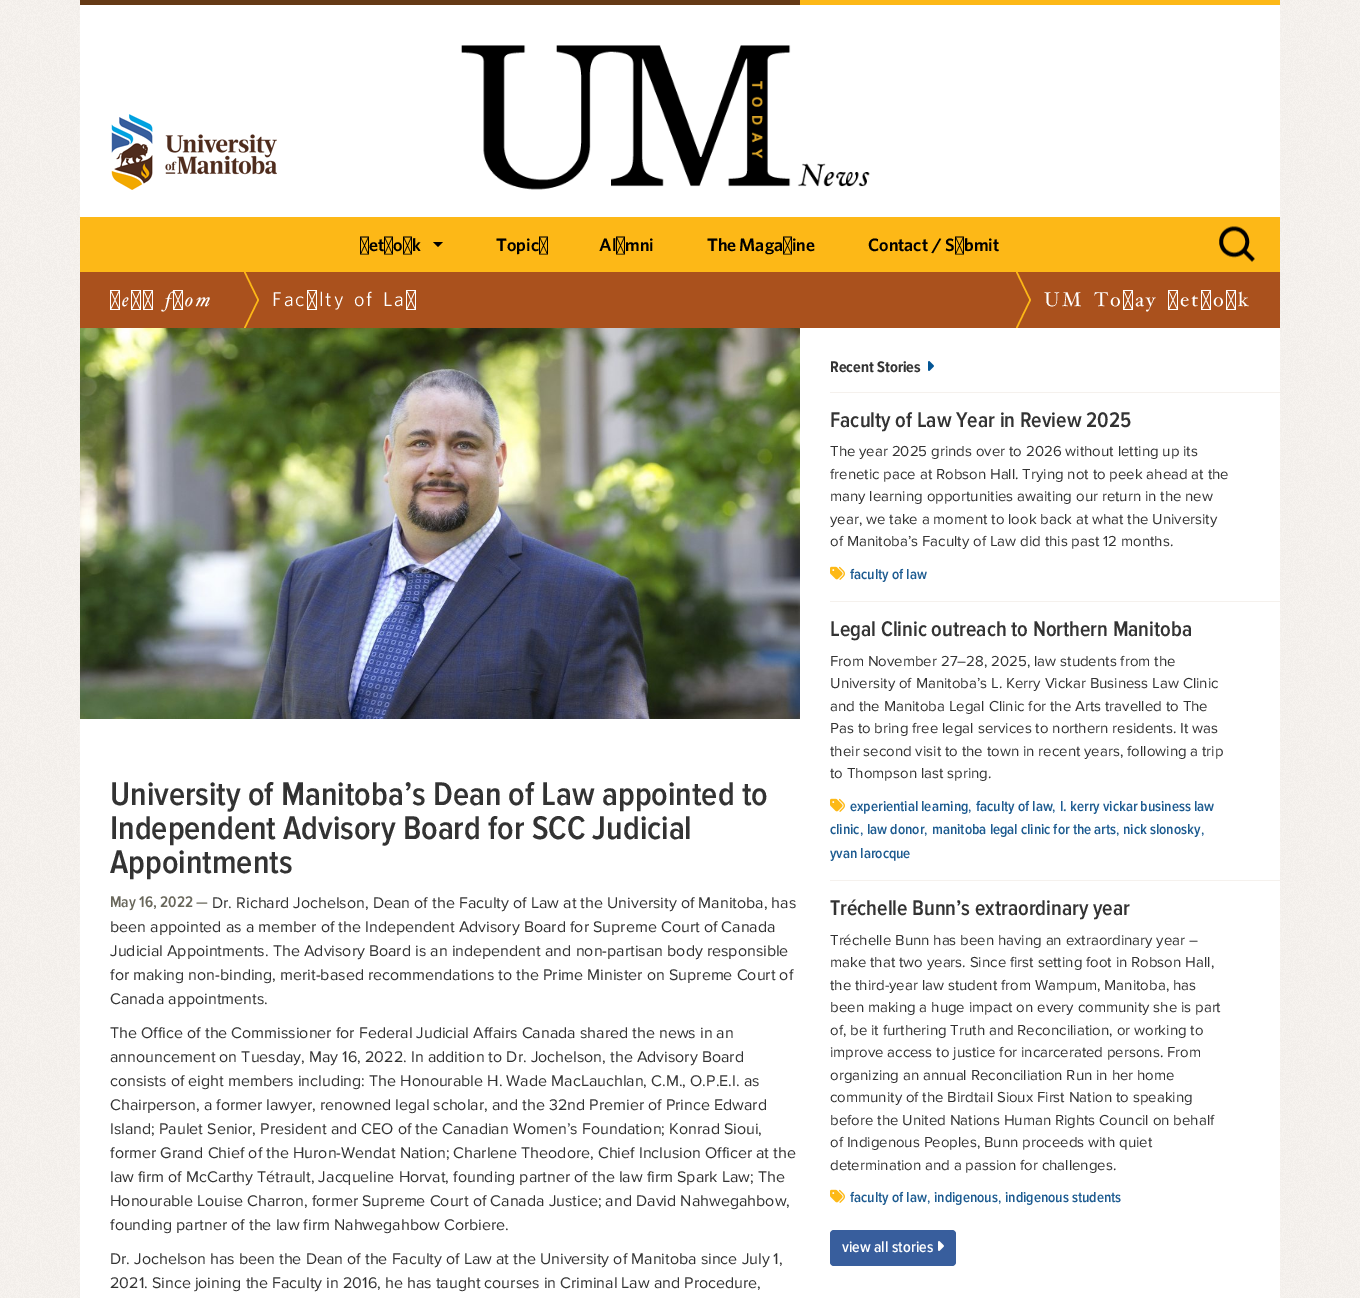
%!PS
<< /PageSize [1360 1298] >> setpagedevice
/rgb { dup -16 bitshift 255 div exch dup -8 bitshift 255 and 255 div exch 255 and 255 div setrgbcolor } def
/font { [ exch dup neg 0 0 3 -1 roll 0 0 ] selectfont } def
/text { moveto show } def
/roundrect { 5 dict begin { /r /h /w /y /x } { exch def } forall
  x r add y moveto x w add y 2 copy h add r arct x w add y h add x 1 index r arct
  x y h add x y r arct x y 2 copy exch w add exch r arct closepath end } def
/picture { 5 dict begin { /h /w /y /x /name } { exch def } forall
  gsave x y translate w h scale
  w h 8 [w 0 0 h 0 0] name (r) file false 3 colorimage grestore end } def
0 1298 translate 1 -1 scale
4 setmiterlimit
/s1 { /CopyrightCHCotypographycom-Regular 18 font 16#000000 rgb } def
/s2 { /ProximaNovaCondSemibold-SemiBold 34 font 16#333333 rgb } def
/s3 { /ProximaNovaCondSemibold-SemiBold 16 font 16#69675B rgb } def
/s4 { /ProximaNova-Regular 16 font 16#333333 rgb } def
/s5 { /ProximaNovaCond-Bold 16 font 16#333333 rgb } def
/s6 { /ProximaNovaCondSemibold-SemiBold 22 font 16#333333 rgb } def
/s7 { /ProximaNova-Regular 15 font 16#333333 rgb } def
/s8 { /ProximaNovaCondSemibold-SemiBold 15 font 16#1E5C91 rgb } def
/s9 { /ProximaNova-Regular 15 font 16#1E5C91 rgb } def
/s10 { /ProximaNovaCondSemibold-SemiBold 16 font 16#FFFFFF rgb } def
16#FFFFFF rgb
0 0 1360 1298 rectfill
(pic1.raw) 0 0 1360 1298 picture
16#653A15 rgb
80 0 720 5 rectfill
16#FDB817 rgb
800 0 480 5 rectfill
16#FFFFFF rgb
80 5 1200 212 rectfill
(pic2.raw) 111 114 166 76 picture
(pic3.raw) 461 45 409 145 picture
16#FDB817 rgb
80 217 1200 55 rectfill
s1
(Network) 360 251 text
433 242 moveto 443 242 lineto 438 247 lineto closepath fill
(Topics) 496 251 text
(Alumni) 599 251 text
707 251 moveto -1 0 32 (The Magazine) widthshow
(Contact / Submit) 868 251 text
(pic4.raw) 1219 226 36 36 picture
16#AA511D rgb
80 272 1200 56 rectfill
/CopyrightCHCotypographycom-LightItalic 20 font
16#FFFFFF rgb
110 306 moveto 4 0 32 2 0 (News from) awidthshow
gsave
242 272 208 56 rectclip
16#FDB817 rgb
244 331 moveto 244 269 lineto 259 300 lineto closepath fill
16#AA511D rgb
242 331 moveto 242 269 lineto 257 300 lineto closepath fill
grestore
/CopyrightCHCotypographycom-Light 20 font
272 306 moveto 2 0 32 2 0 (Faculty of Law) awidthshow
gsave
1014 272 266 56 rectclip
16#FDB817 rgb
1016 331 moveto 1016 269 lineto 1031 300 lineto closepath fill
16#AA511D rgb
1014 331 moveto 1014 269 lineto 1029 300 lineto closepath fill
grestore
/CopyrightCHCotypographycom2-Light 20 font
1044 306 moveto 5 0 32 2 0 (UM Today Network) awidthshow
80 328 1200 970 rectfill
(pic5.raw) 80 328 720 391 picture
s2
(University of Manitoba’s Dean of Law appointed to) 110 805 text
(Independent Advisory Board for SCC Judicial) 110 839 text
(Appointments) 110 873 text
s3
(May 16, 2022 —) 110 907 text
s4
(Dr. Richard Jochelson, Dean of the Faculty of Law at the University of Manitoba, has) 212 908 text
(been appointed as a member of the Independent Advisory Board for Supreme Court of Canada) 110 932 text
(Judicial Appointments. The Advisory Board is an independent and non-partisan body responsible) 110 956 text
(for making non-binding, merit-based recommendations to the Prime Minister on Supreme Court of) 110 980 text
(Canada appointments.) 110 1004 text
(The Office of the Commissioner for Federal Judicial Affairs Canada shared the news in an) 110 1038 text
(announcement on Tuesday, May 16, 2022. In addition to Dr. Jochelson, the Advisory Board) 110 1062 text
(consists of eight members including: The Honourable H. Wade MacLauchlan, C.M., O.P.E.I. as) 110 1086 text
(Chairperson, a former lawyer, renowned legal scholar, and the 32nd Premier of Prince Edward) 110 1110 text
(Island; Paulet Senior, President and CEO of the Canadian Women’s Foundation; Konrad Sioui,) 110 1134 text
(former Grand Chief of the Huron-Wendat Nation; Charlene Theodore, Chief Inclusion Officer at the) 110 1158 text
(law firm of McCarthy Tétrault, Jacqueline Horvat, founding partner of the law firm Spark Law; The) 110 1182 text
(Honourable Louise Charron, former Supreme Court of Canada Justice; and David Nahwegahbow,) 110 1206 text
(founding partner of the law firm Nahwegahbow Corbiere.) 110 1230 text
(Dr. Jochelson has been the Dean of the Faculty of Law at the University of Manitoba since July 1,) 110 1264 text
(2021. Since joining the Faculty in 2016, he has taught courses in Criminal Law and Procedure,) 110 1288 text
s5
(Recent Stories) 830 372 text
(pic6.raw) 928 361 6 10 picture
16#F5F1ED rgb
830 392 450 1 rectfill
s6
(Faculty of Law Year in Review 2025) 830 427 text
s7
(The year 2025 grinds over to 2026 without letting up its) 830 456 text
(frenetic pace at Robson Hall. Trying not to peek ahead at the) 830 479 text
(many learning opportunities awaiting our return in the new) 830 501 text
(year, we take a moment to look back at what the University) 830 524 text
(of Manitoba’s Faculty of Law did this past 12 months.) 830 546 text
(pic7.raw) 830 566 15 14 picture
s8
(faculty of law) 850 579 text
16#F5F1ED rgb
830 601 450 1 rectfill
s6
(Legal Clinic outreach to Northern Manitoba) 830 636 text
s7
(From November 27–28, 2025, law students from the) 830 666 text
(University of Manitoba’s L. Kerry Vickar Business Law Clinic) 830 688 text
(and the Manitoba Legal Clinic for the Arts travelled to The) 830 711 text
(Pas to bring free legal services to northern residents. It was) 830 733 text
(their second visit to the town in recent years, following a trip) 830 756 text
(to Thompson last spring.) 830 778 text
(pic7.raw) 830 798 15 14 picture
s8
(experiential learning) 850 811 text
s9
(,) 968 811 text
s8
(faculty of law) 976 811 text
s9
(,) 1052 811 text
s8
(l. kerry vickar business law) 1060 811 text
(clinic) 830 834 text
s9
(,) 860 834 text
s8
(law donor) 867 834 text
s9
(,) 924 834 text
s8
(manitoba legal clinic for the arts) 932 834 text
s9
(,) 1116 834 text
s8
(nick slonosky) 1123 834 text
s9
(,) 1201 834 text
s8
(yvan larocque) 830 858 text
16#F5F1ED rgb
830 880 450 1 rectfill
s6
(Tréchelle Bunn’s extraordinary year) 830 915 text
s7
(Tréchelle Bunn has been having an extraordinary year –) 830 945 text
(make that two years. Since first setting foot in Robson Hall,) 830 967 text
(the third-year law student from Wampum, Manitoba, has) 830 990 text
(been making a huge impact on every community she is part) 830 1012 text
(of, be it furthering Truth and Reconciliation, or working to) 830 1035 text
(improve access to justice for incarcerated persons. From) 830 1057 text
(organizing an annual Reconciliation Run in her home) 830 1080 text
(community of the Birdtail Sioux First Nation to speaking) 830 1102 text
(before the United Nations Human Rights Council on behalf) 830 1125 text
(of Indigenous Peoples, Bunn proceeds with quiet) 830 1147 text
(determination and a passion for challenges.) 830 1170 text
(pic7.raw) 830 1189 15 14 picture
s8
(faculty of law) 850 1202 text
s9
(,) 927 1202 text
s8
(indigenous) 934 1202 text
s9
(,) 998 1202 text
s8
(indigenous students) 1005 1202 text
16#385E9D rgb
830 1230 126 36 4 roundrect fill
s10
(view all stories) 842 1252 text
(pic8.raw) 938 1241 6 10 picture
showpage
